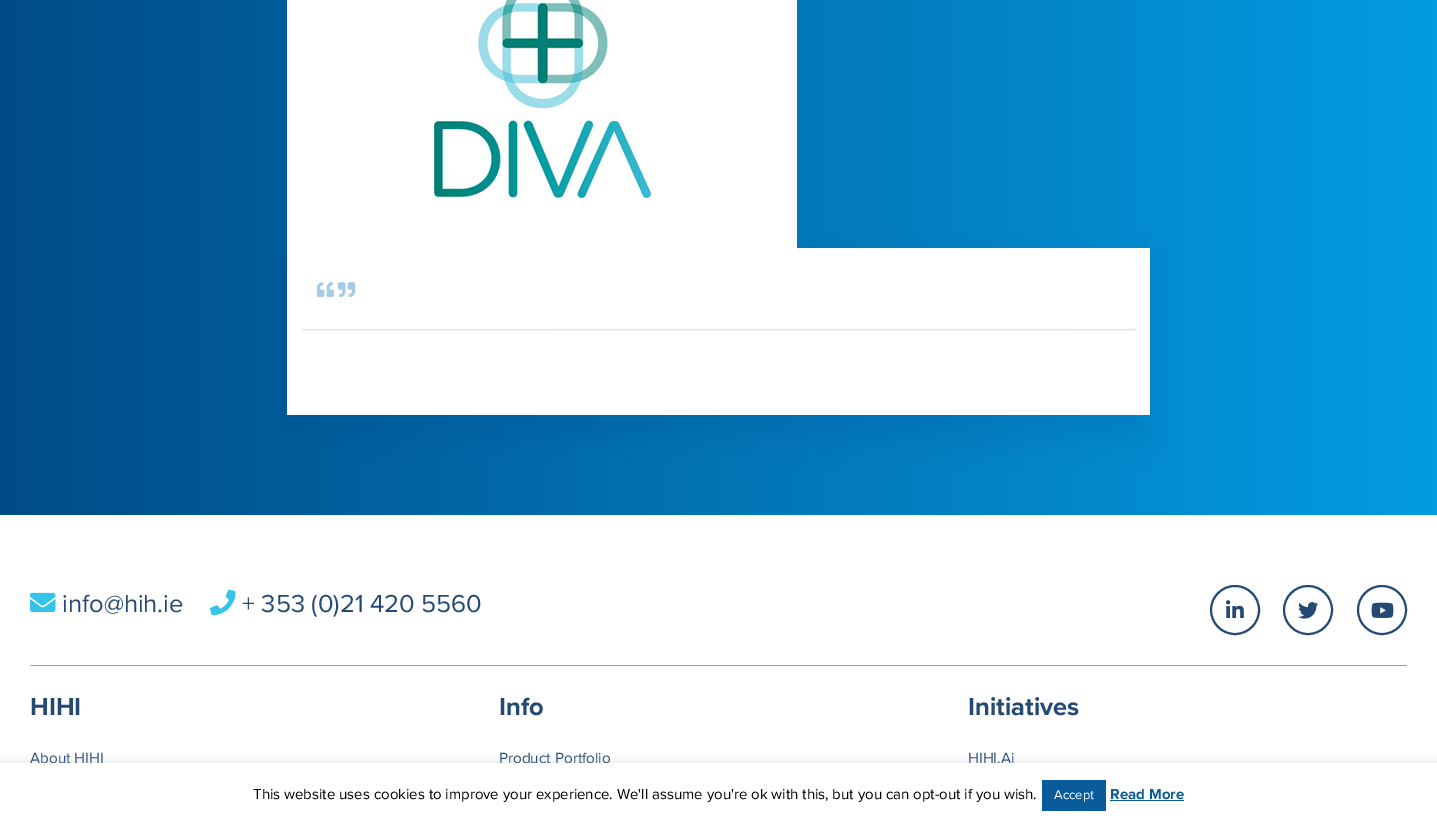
%!PS
<< /PageSize [1437 823] /PageUsesTransparency true >> setpagedevice
/rgb { dup -16 bitshift 255 div exch dup -8 bitshift 255 and 255 div exch 255 and 255 div setrgbcolor } def
/font { [ exch dup neg 0 0 3 -1 roll 0 0 ] selectfont } def
/text { moveto show } def
/alpha { dup .setfillconstantalpha .setstrokeconstantalpha } def
/circle { newpath 0 360 arc closepath } def
/roundrect { 5 dict begin { /r /h /w /y /x } { exch def } forall
  x r add y moveto x w add y 2 copy h add r arct x w add y h add x 1 index r arct
  x y h add x y r arct x y 2 copy exch w add exch r arct closepath end } def
/shadow { 12 dict begin { /a /b /q /h /w /y /x } { exch def } forall gsave /was 0 def
  9 -2 -9 { dup b mul 4 div /e exch def 1 sub .425 mul 2.718 exch exp 1 add a .99 .min exch div /now exch def
    1 1 now sub 1 was sub div sub alpha /was now def
    w h .min e 2 mul add 0 gt { x e sub y e sub w e 2 mul add h e 2 mul add
      q e add b .6 mul add w h .min 2 div e add .min 0 .max roundrect fill } if } for grestore end } def
/picture { 5 dict begin { /h /w /y /x /name } { exch def } forall
  gsave x y translate w h scale
  w h 8 [w 0 0 h 0 0] name (r) file false 3 colorimage grestore end } def
0 .pushpdf14devicefilter
0 823 translate 1 -1 scale
4 setmiterlimit
/s1 { /ProximaNova-Regular 25.5 font 16#244974 rgb } def
/s2 { /ProximaNova-Bold 25.5 font 16#244974 rgb } def
/s3 { /ProximaNova-Regular 15.25 font 16#244974 rgb } def
/s4 { /ProximaNova-Regular 15 font 16#000000 rgb } def
/s5 { /ProximaNova-Regular 13 font 16#FFFFFF rgb } def
/s6 { /ProximaNova-Bold 15 font 16#0A5B9A rgb } def
16#FFFFFF rgb
0 0 1437 823 rectfill
gsave 0 0 moveto 1437 0 lineto 1437 515 lineto 0 515 lineto closepath clip newpath
<< /ShadingType 2 /ColorSpace /DeviceRGB /Coords [0 7 1437 7] /Extend [true true] /Function << /FunctionType 2 /Domain [0 1] /C0 [0 0.298 0.529] /C1 [0.012 0.612 0.886] /N 1 >> >> shfill grestore
16#00357C rgb
287 268 863 167 0 20 0.15 shadow
(pic1.raw) 287 0 510 248 picture
16#FFFFFF rgb
287 248 863 167 rectfill
(pic2.raw) 317 282 17 16 picture
(pic3.raw) 338 282 17 15 picture
16#CCCCCC rgb
[1 1] 0 setdash
302 329.5 moveto 1135 329.5 lineto stroke
(pic4.raw) 30 592 26 20 picture
s1
(info@hih.ie) 62 612 text
(pic5.raw) 210 589 26 27 picture
(+ 353 \(0\)21 420 5560) 242 612 text
2 setlinewidth
[] 0 setdash
1235 610 24 circle stroke
(pic6.raw) 1226 600 18 18 picture
1308 610 24 circle stroke
(pic7.raw) 1298 602 21 17 picture
1382 610 24 circle stroke
(pic8.raw) 1371 602 23 16 picture
16#34C4E9 rgb
30 665 1377 1 rectfill
s2
(HIHI) 30 715 text
s3
(About HIHI) 30 763 text
s2
(Info) 499 715 text
s3
(Product Portfolio) 499 763 text
s2
(Initiatives) 968 715 text
s3
(HIHI.Ai) 968 763 text
16#ACABAB rgb
0 762 1437 60 0 5 0.3 shadow
16#FFFFFF rgb
0 763 1437 60 rectfill
s4
(This website uses cookies to improve your experience. We'll assume you're ok with this, but you can opt-out if you wish.) 253 799 text
16#0A5B9A rgb
1042 780 64 31 rectfill
s5
(Accept) 1054 799 text
s6
(Read More) 1110 799 text
1110 800 74 1 rectfill
.poppdf14devicefilter showpage
